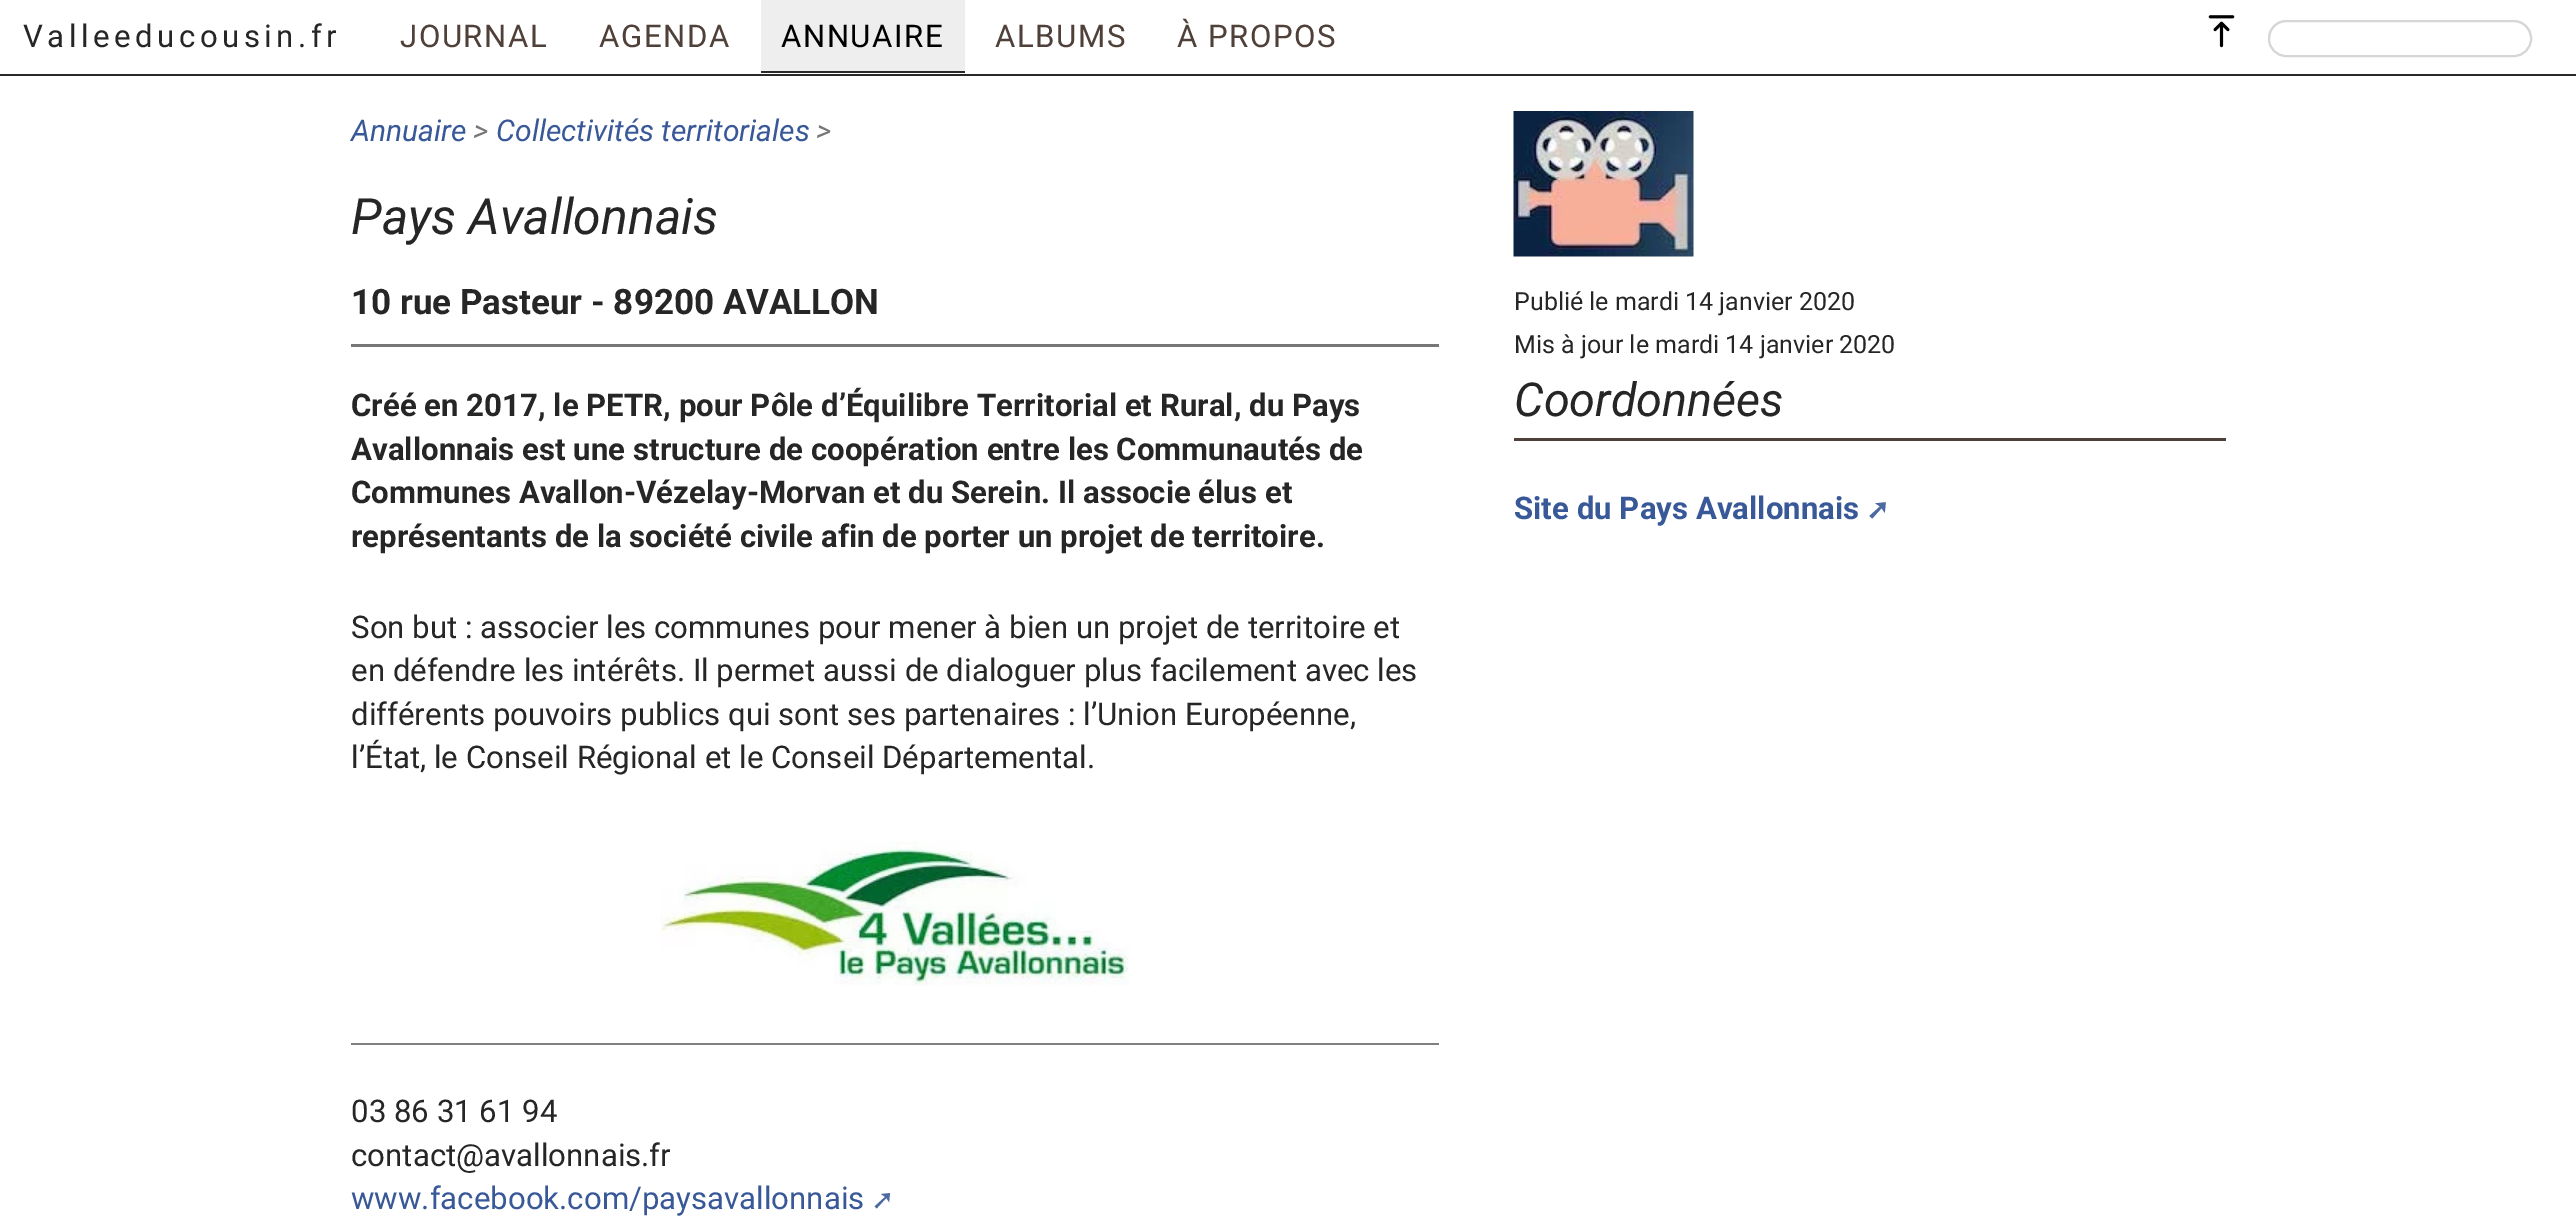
%!PS
<< /PageSize [2576 1221] >> setpagedevice
/rgb { dup -16 bitshift 255 div exch dup -8 bitshift 255 and 255 div exch 255 and 255 div setrgbcolor } def
/font { [ exch dup neg 0 0 3 -1 roll 0 0 ] selectfont } def
/text { moveto show } def
/roundrect { 5 dict begin { /r /h /w /y /x } { exch def } forall
  x r add y moveto x w add y 2 copy h add r arct x w add y h add x 1 index r arct
  x y h add x y r arct x y 2 copy exch w add exch r arct closepath end } def
/picture { 5 dict begin { /h /w /y /x /name } { exch def } forall
  gsave x y translate w h scale
  w h 8 [w 0 0 h 0 0] name (r) file false 3 colorimage grestore end } def
0 1221 translate 1 -1 scale
4 setmiterlimit
/s1 { /Roboto-Italic 30 font 16#385898 rgb } def
/s2 { /Roboto-Italic 30 font 16#777777 rgb } def
/s3 { /Roboto-Italic 50 font 16#262626 rgb } def
/s4 { /Roboto-Bold 35 font 16#262626 rgb } def
/s5 { /Roboto-Bold 31.2 font 16#262626 rgb } def
/s6 { /Roboto-Regular 31.2 font 16#262626 rgb } def
/s7 { /Roboto-Regular 31.2 font 16#385898 rgb } def
/s8 { /DejaVuSans-Regular 28 font 16#4C69A2 rgb } def
/s9 { /Roboto-Regular 25 font 16#262626 rgb } def
/s10 { /Roboto-Italic 46.75 font 16#262626 rgb } def
/s11 { /Roboto-Bold 31.2 font 16#385898 rgb } def
/s12 { /DejaVuSans-Bold 28 font 16#4C69A2 rgb } def
16#FFFFFF rgb
0 0 2576 1221 rectfill
16#292929 rgb
0 74 2576 2 rectfill
/Roboto-Regular 31.2 font
16#262626 rgb
23 47 moveto 4.5 0 (Valleeducousin.fr) ashow
16#4F4039 rgb
400 47 moveto 1.5 0 (JOURNAL) ashow
599 47 moveto 1.5 0 (AGENDA) ashow
16#EEEEEE rgb
761 0 204 71 rectfill
16#000000 rgb
781 47 moveto 1.5 0 (ANNUAIRE) ashow
16#292929 rgb
761 71 204 2 rectfill
16#4F4039 rgb
995 47 moveto 1.5 0 (ALBUMS) ashow
1177 47 moveto 1.5 0 (À PROPOS) ashow
(pic1.raw) 2208 15 27 33 picture
16#F0F0F0 rgb
2286 22 moveto 2514 22 lineto 2523 22 2530 30 2530 39 curveto 2530 40 lineto 2530 43 2529 46 2528 49 curveto 2530 46 2531 43 2531 39 curveto 2531 38 lineto 2531 29 2523 21 2514 21 curveto 2287 21 lineto 2278 21 2270 29 2270 38 curveto 2270 39 lineto 2270 30 2277 22 2286 22 curveto closepath fill
16#D6D6D6 rgb
2 setlinewidth
2269 21 262 35 17 roundrect stroke
16#777777 rgb
351 344 1088 3 rectfill
s1
(Annuaire) 351 141 text
s2
(>) 473 141 text
s1
(Collectivités territoriales) 496 141 text
s2
(>) 816 141 text
s3
(Pays Avallonnais) 351 234 text
s4
(10 rue Pasteur - 89200 AVALLON) 351 314 text
s5
(Créé en 2017, le PETR, pour Pôle d’Équilibre Territorial et Rural, du Pays) 351 416 text
(Avallonnais est une structure de coopération entre les Communautés de) 351 460 text
(Communes Avallon-Vézelay-Morvan et du Serein. Il associe élus et) 351 503 text
(représentants de la société civile afin de porter un projet de territoire.) 351 547 text
s6
(Son but : associer les communes pour mener à bien un projet de territoire et) 351 638 text
(en défendre les intérêts. Il permet aussi de dialoguer plus facilement avec les) 351 681 text
(différents pouvoirs publics qui sont ses partenaires : l’Union Européenne,) 351 725 text
(l’État, le Conseil Régional et le Conseil Départemental.) 351 768 text
(pic2.raw) 660 841 469 145 picture
16#808080 rgb
351 1043 1088 2 rectfill
s6
(03 86 31 61 94) 351 1122 text
(contact@avallonnais.fr) 351 1166 text
s7
(www.facebook.com/paysavallonnais) 351 1209 text
s8
(➚) 871 1209 text
(pic3.raw) 1513 111 181 146 picture
s9
(Publié le mardi 14 janvier 2020) 1514 310 text
(Mis à jour le mardi 14 janvier 2020) 1514 353 text
16#4F4039 rgb
1514 438 712 3 rectfill
s10
(Coordonnées) 1514 416 text
s11
(Site du Pays Avallonnais) 1514 519 text
s12
(➚) 1866 519 text
showpage
